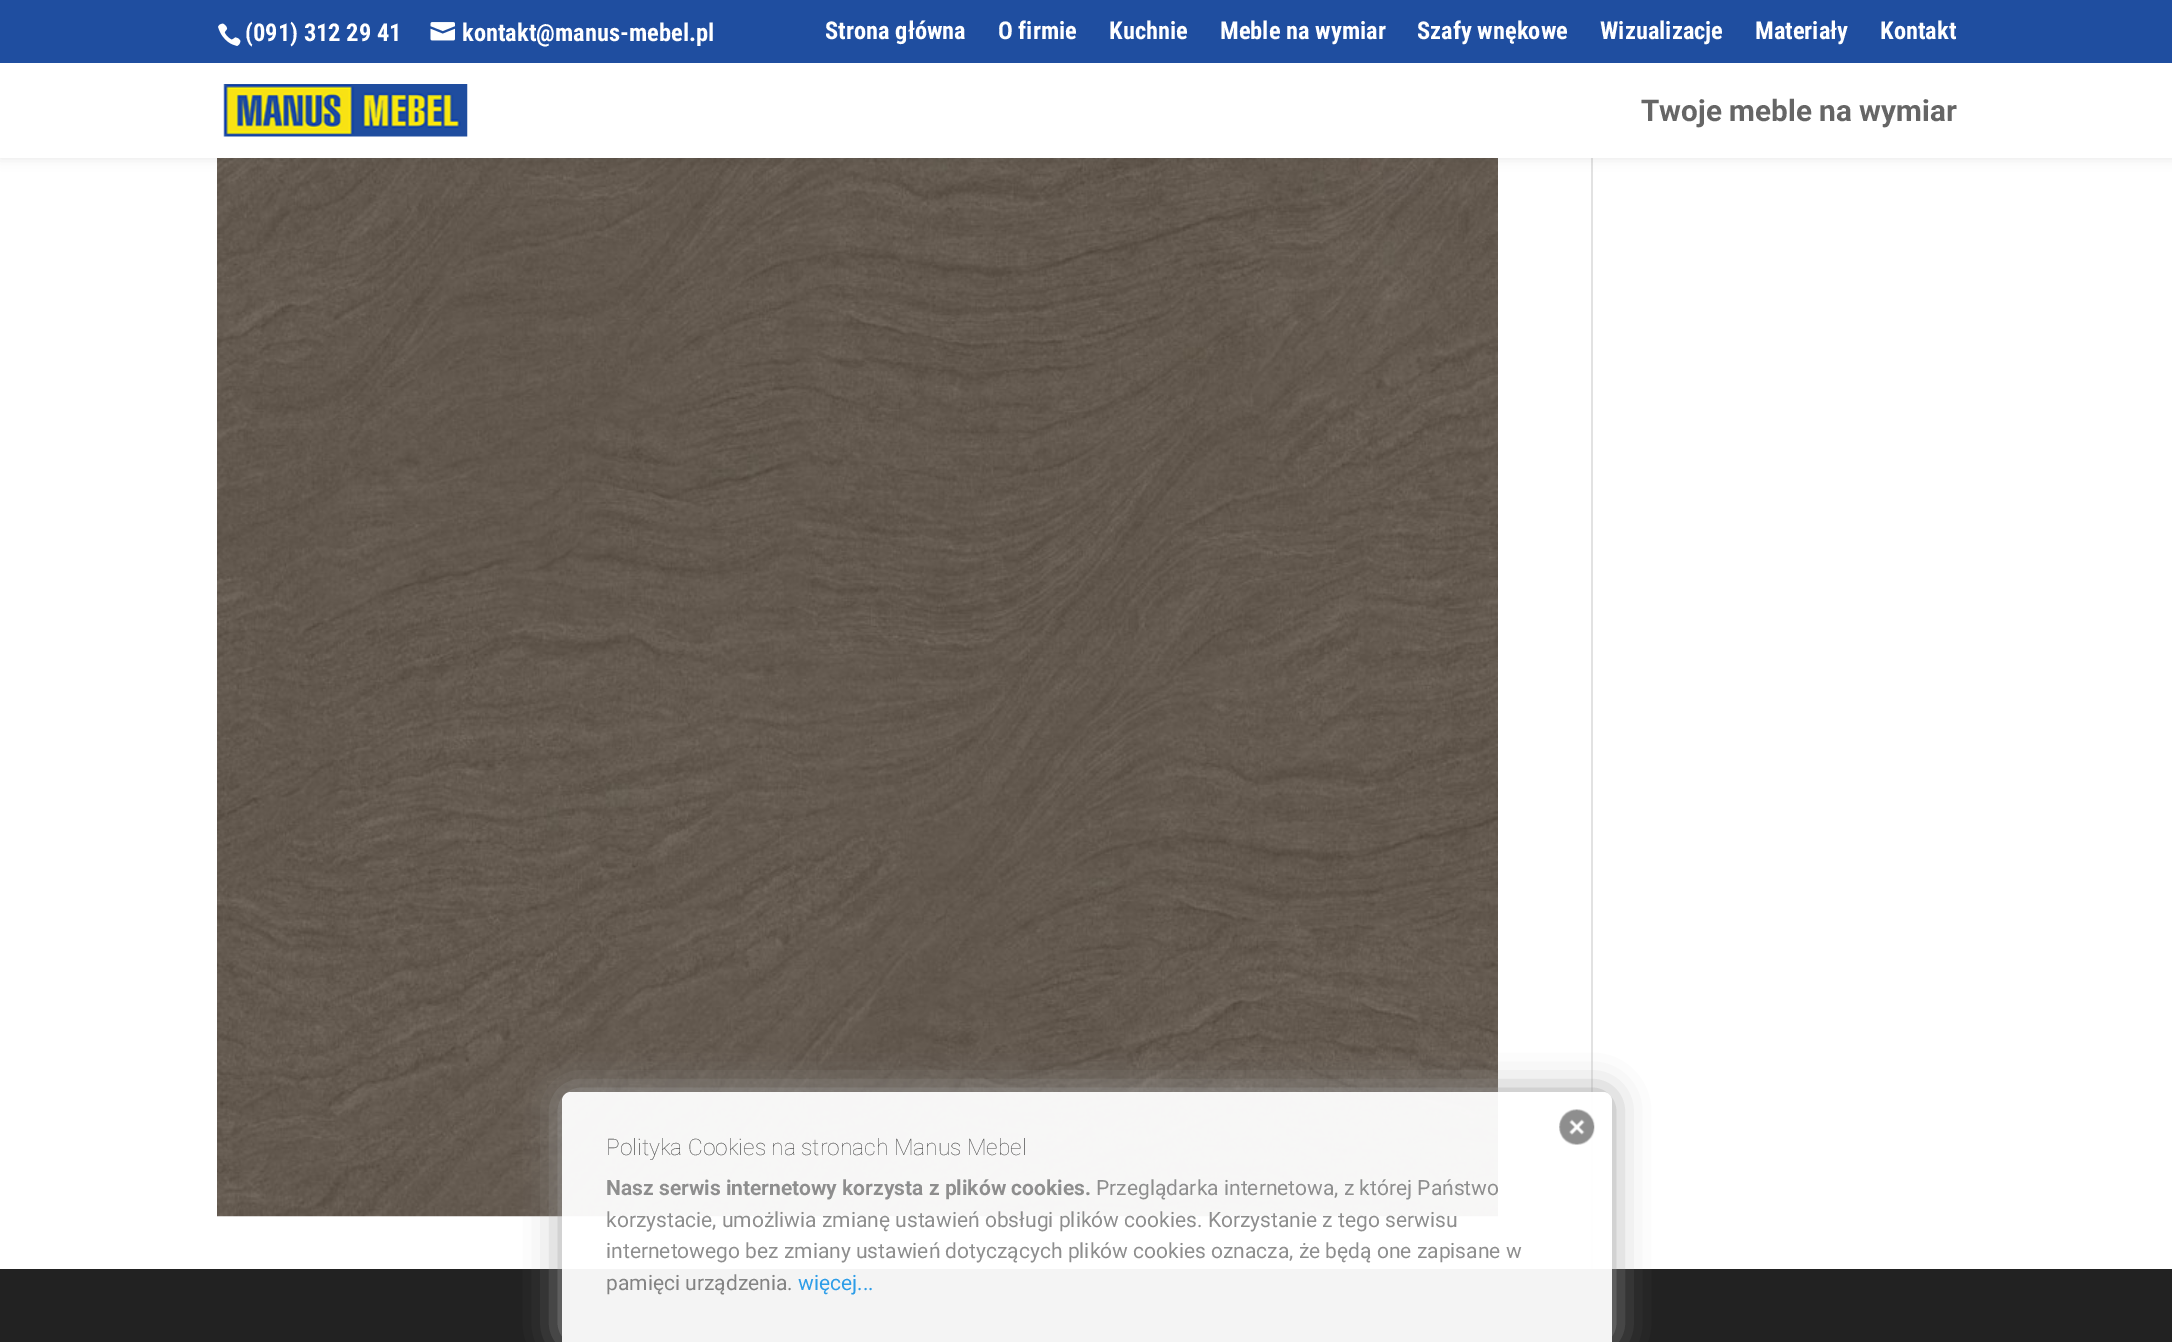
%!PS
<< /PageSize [2172 1342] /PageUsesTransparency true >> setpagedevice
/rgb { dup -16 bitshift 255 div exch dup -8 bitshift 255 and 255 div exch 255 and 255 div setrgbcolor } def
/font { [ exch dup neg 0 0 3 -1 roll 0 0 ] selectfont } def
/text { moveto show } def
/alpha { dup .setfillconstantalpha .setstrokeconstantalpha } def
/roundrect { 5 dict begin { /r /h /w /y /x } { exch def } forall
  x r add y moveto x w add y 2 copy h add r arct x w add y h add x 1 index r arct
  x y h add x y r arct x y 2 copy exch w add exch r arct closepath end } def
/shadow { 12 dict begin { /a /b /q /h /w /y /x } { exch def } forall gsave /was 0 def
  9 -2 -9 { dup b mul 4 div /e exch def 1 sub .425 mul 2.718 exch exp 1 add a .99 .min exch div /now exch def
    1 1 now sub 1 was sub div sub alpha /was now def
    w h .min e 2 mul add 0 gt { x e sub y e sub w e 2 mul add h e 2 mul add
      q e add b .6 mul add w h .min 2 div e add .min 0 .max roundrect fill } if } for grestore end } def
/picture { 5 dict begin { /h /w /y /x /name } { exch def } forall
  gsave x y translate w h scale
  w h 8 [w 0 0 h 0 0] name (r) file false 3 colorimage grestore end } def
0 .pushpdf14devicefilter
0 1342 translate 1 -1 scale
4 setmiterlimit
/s1 { /RobotoCondensed-Bold 24.5 font 16#FFFFFF rgb } def
/s2 { /Roboto-Bold 29.75 font 16#666666 rgb } def
/s3 { /Roboto-Thin 22.75 font 16#4D4D4D rgb } def
/s4 { /Roboto-Bold 21 font 16#8E8E8E rgb } def
/s5 { /Roboto-Regular 21 font 16#8E8E8E rgb } def
/s6 { /Roboto-Regular 21 font 16#838383 rgb } def
/s7 { /Roboto-Regular 21 font 16#2D9DE8 rgb } def
16#FFFFFF rgb
0 0 2172 1342 rectfill
(pic4.raw) 217 158 1281 1059 picture
16#E2E2E2 rgb
1591 158 2 1111 rectfill
16#000000 rgb
0 63 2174 95 0 6 0.1 shadow
16#1F4EA0 rgb
0 0 2172 63 rectfill
(pic1.raw) 218 23 23 23 picture
s1
(\(091\) 312 29 41) 245 41 text
(pic2.raw) 430 22 25 19 picture
(kontakt@manus-mebel.pl) 462 41 text
(Strona główna) 825 39 text
(O firmie) 998 39 text
(Kuchnie) 1109 39 text
(Meble na wymiar) 1220 39 text
(Szafy wnękowe) 1417 39 text
(Wizualizacje) 1600 39 text
(Materiały) 1755 39 text
(Kontakt) 1880 39 text
0 63 2172 95 rectfill
(pic3.raw) 223 84 245 53 picture
s2
(Twoje meble na wymiar) 1641 121 text
16#222222 rgb
0 1269 2172 73 rectfill
gsave
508 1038 moveto 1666 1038 lineto 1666 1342 lineto 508 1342 lineto closepath 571 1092 moveto 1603 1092 lineto 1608 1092 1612 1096 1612 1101 curveto 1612 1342 lineto 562 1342 lineto 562 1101 lineto 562 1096 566 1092 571 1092 curveto closepath eoclip newpath
16#A1A1A1 rgb
562 1092 1050 250 9 17.5 0.95 shadow
grestore
0.95 alpha
16#FFFFFF rgb
571 1092 moveto 1603 1092 lineto 1608 1092 1612 1096 1612 1101 curveto 1612 1342 lineto 562 1342 lineto 562 1101 lineto 562 1096 566 1092 571 1092 curveto closepath fill
1 alpha
(pic5.raw) 1559 1109 36 36 picture
s3
(Polityka Cookies na stronach Manus Mebel) 606 1155 text
s4
(Nasz serwis internetowy korzysta z plików cookies.) 606 1195 text
s5
(Przeglądarka internetowa, z której Państwo) 1096 1195 text
(korzystacie, umożliwia zmianę ustawień obsługi plików cookies. Korzystanie z tego serwisu) 606 1227 text
(internetowego bez zmiany ustawień dotyczących plików cookies oznacza, że będą one zapisane w) 606 1258 text
s6
(pamięci urządzenia.) 606 1290 text
s7
(więcej...) 798 1290 text
.poppdf14devicefilter showpage
